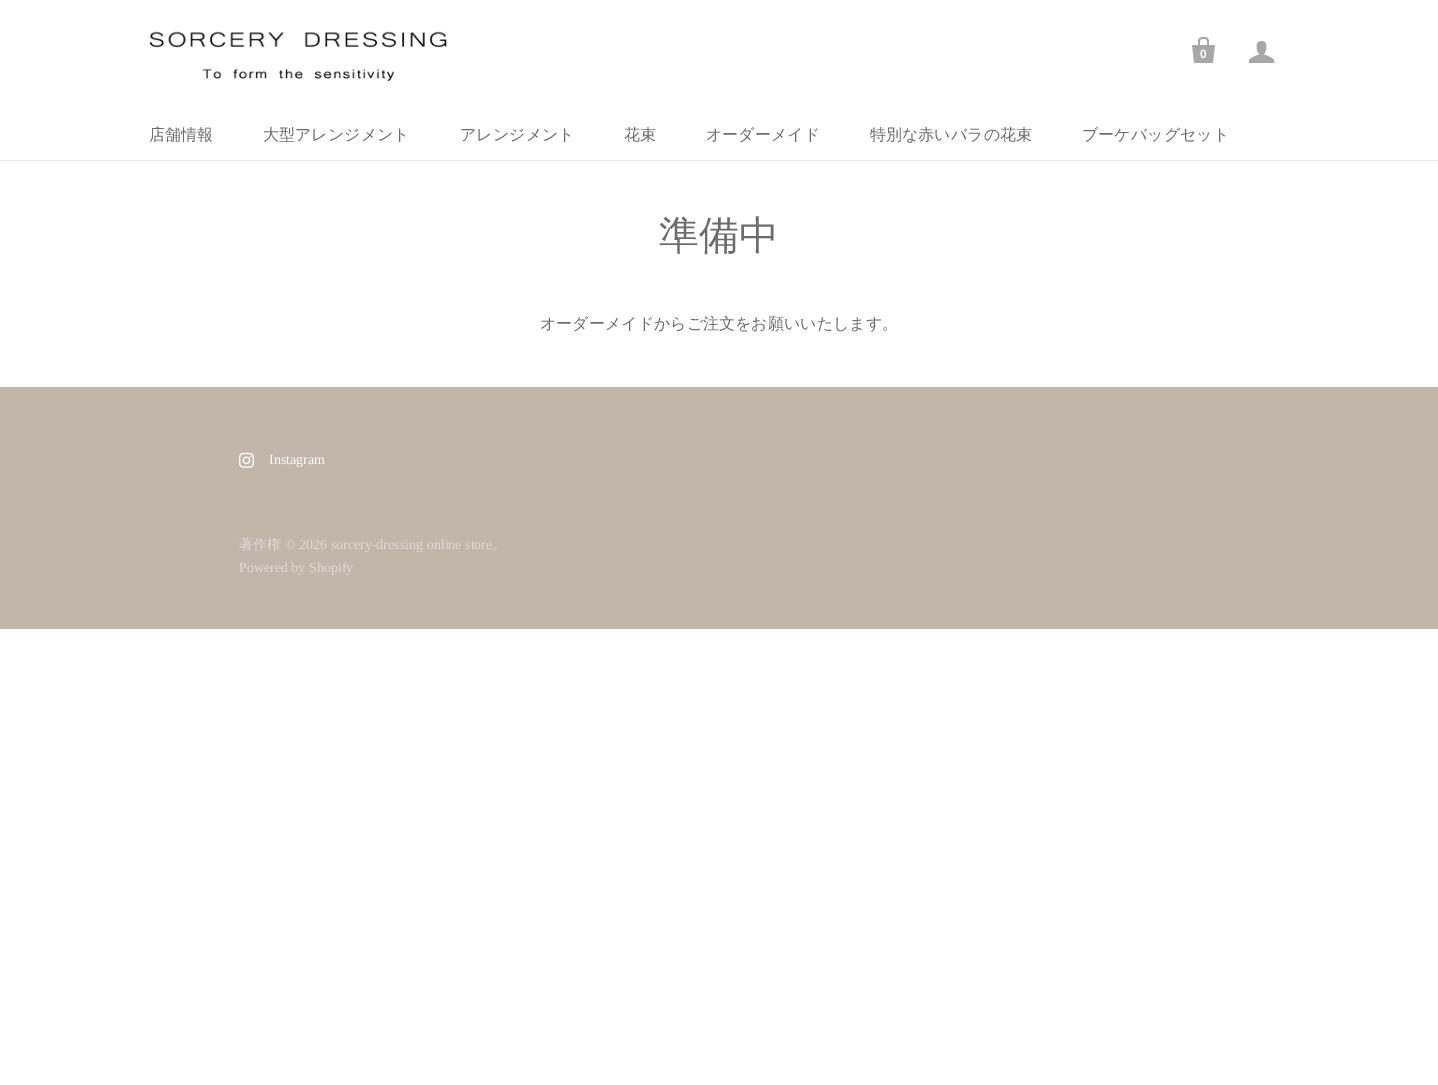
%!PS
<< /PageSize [1438 1085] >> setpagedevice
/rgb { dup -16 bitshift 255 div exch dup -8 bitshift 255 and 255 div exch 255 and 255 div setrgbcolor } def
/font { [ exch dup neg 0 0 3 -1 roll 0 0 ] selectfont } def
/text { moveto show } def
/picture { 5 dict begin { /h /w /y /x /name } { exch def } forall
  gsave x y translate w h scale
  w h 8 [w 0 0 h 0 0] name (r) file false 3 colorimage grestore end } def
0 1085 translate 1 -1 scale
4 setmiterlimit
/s1 { /LiberationSans-Bold 12 font 16#FFFFFF rgb } def
/s2 { /WenQuanYiZenHei-Medium 16 font 16#6C6C6C rgb } def
/s3 { /WenQuanYiZenHei-Medium 40 font 16#6C6C6C rgb } def
/s4 { /LiberationSerif-Regular 14 font 16#FFFFFF rgb } def
/s5 { /WenQuanYiZenHei-Medium 14 font 16#E1DAD5 rgb } def
/s6 { /LiberationSerif-Regular 14 font 16#E1DAD5 rgb } def
16#FFFFFF rgb
0 0 1438 1085 rectfill
16#E9E9E9 rgb
0 160 1438 1 rectfill
(pic1.raw) 149 31 298 50 picture
(pic2.raw) 1192 37 23 26 picture
s1
(0) 1200 58 text
(pic3.raw) 1249 41 26 22 picture
s2
(店舗情報) 149 140 text
(大型アレンジメント) 263 140 text
(アレンジメント) 460 140 text
(花束) 624 140 text
(オーダーメイド) 706 140 text
(特別な赤いバラの花束) 870 140 text
(ブーケバッグセット) 1082 140 text
s3
(準備中) 659 249 text
s2
(オーダーメイドからご注文をお願いいたします。) 540 329 text
16#C2B5AA rgb
0 387 1438 242 rectfill
(pic4.raw) 239 452 15 16 picture
s4
(Instagram) 269 464 text
s5
(著作権) 239 549 text
s6
(© 2026 sorcery-dressing online store) 285 549 text
s5
(。) 492 549 text
s6
(Powered by Shopify) 239 572 text
showpage
